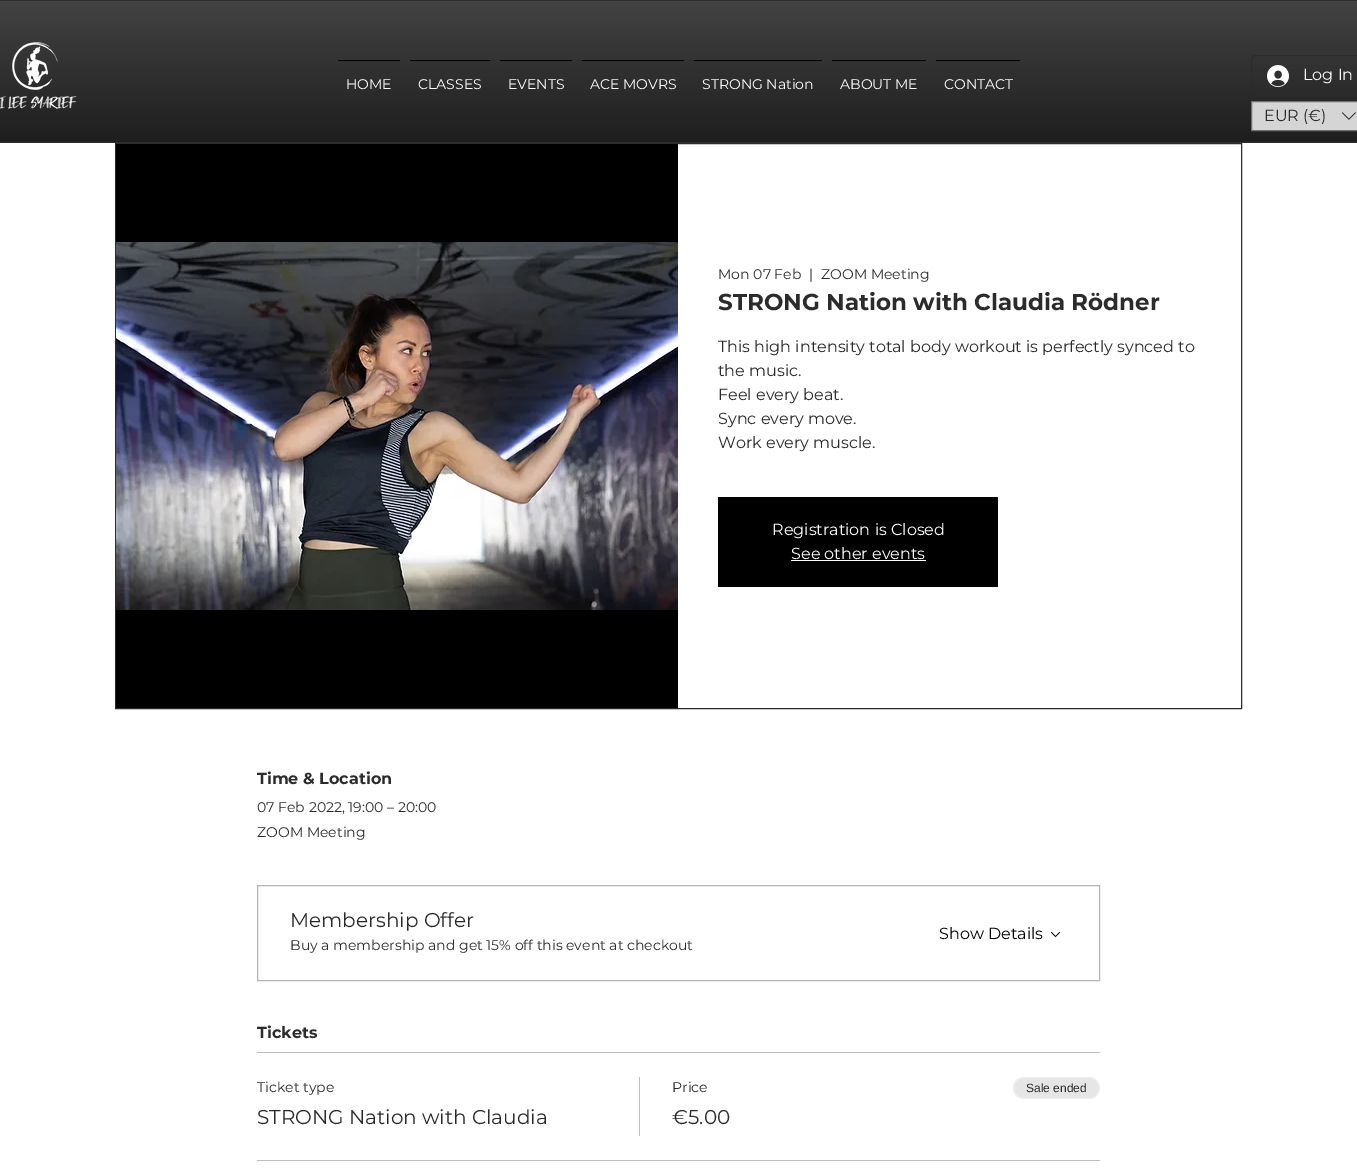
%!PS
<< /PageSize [1357 1172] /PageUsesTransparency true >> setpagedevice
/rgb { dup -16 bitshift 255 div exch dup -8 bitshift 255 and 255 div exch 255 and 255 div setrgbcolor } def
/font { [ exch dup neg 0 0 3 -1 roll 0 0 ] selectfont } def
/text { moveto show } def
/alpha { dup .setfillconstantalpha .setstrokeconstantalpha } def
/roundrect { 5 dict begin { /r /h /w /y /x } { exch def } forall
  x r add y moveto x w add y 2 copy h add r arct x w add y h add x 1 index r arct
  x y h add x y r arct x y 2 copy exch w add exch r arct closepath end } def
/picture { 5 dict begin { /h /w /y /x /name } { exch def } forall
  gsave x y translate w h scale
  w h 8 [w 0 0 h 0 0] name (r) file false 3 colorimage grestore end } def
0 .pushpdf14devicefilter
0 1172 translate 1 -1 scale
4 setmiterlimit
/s1 { /Montserrat-Regular 14 font 16#FFFFFF rgb } def
/s2 { /Montserrat-Regular 16 font 16#FFFFFF rgb } def
/s3 { /Montserrat-Regular 16 font 16#2B2B2B rgb } def
/s4 { /Montserrat-Regular 14 font 16#2B2B2B rgb } def
/s5 { /Montserrat-Bold 23 font 16#2B2B2B rgb } def
/s6 { /Montserrat-Bold 16 font 16#2B2B2B rgb } def
/s7 { /Montserrat-Regular 20 font 16#2B2B2B rgb } def
/s8 { /Montserrat-Regular 16 font 16#000000 rgb } def
/s9 { /LiberationSans-Regular 12 font 16#2B2B2B rgb } def
16#FFFFFF rgb
0 0 1357 1172 rectfill
16#000000 rgb
0 1 1357 141 rectfill
(pic1.raw) 0 1 1357 141 picture
16#2F2E2E rgb
0 0 1357 1 rectfill
0 142 1357 1 rectfill
(pic2.raw) 0 42 77 67 picture
16#000000 rgb
338 60 62 1 rectfill
s1
(HOME) 346 89 text
16#000000 rgb
410 60 80 1 rectfill
s1
(CLASSES) 418 89 text
16#000000 rgb
500 60 72 1 rectfill
s1
(EVENTS) 508 89 text
16#000000 rgb
582 60 102 1 rectfill
s1
(ACE MOVRS) 590 89 text
16#000000 rgb
694 60 128 1 rectfill
s1
(STRONG Nation) 702 89 text
16#000000 rgb
832 60 94 1 rectfill
s1
(ABOUT ME) 840 89 text
16#000000 rgb
936 60 84 1 rectfill
s1
(CONTACT) 944 89 text
16#2B2B2B rgb
1251.5 55.5 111 40 4.5 roundrect stroke
(pic3.raw) 1267 65 22 22 picture
s2
(Log In) 1303 80 text
16#D5D5D5 rgb
1251.5 101.5 moveto 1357.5 101.5 lineto 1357.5 130.5 lineto 1251.5 130.5 lineto closepath gsave fill grestore
16#6F6F6F rgb
stroke
s3
(EUR \(€\)) 1264 121 text
(pic4.raw) 1341 112 15 8 picture
115.5 143.5 1126 565 rectstroke
16#000000 rgb
116 144 562 564 rectfill
(pic5.raw) 116 242 562 368 picture
s4
(Mon 07 Feb) 718 279 text
(|) 809 279 text
(ZOOM Meeting) 821 279 text
s5
(STRONG Nation with Claudia Rödner) 718 310 text
s3
(This high intensity total body workout is perfectly synced to) 718 352 text
(the music.) 718 376 text
(Feel every beat.) 718 400 text
(Sync every move.) 718 424 text
(Work every muscle.) 718 448 text
16#000000 rgb
718 497 280 90 rectfill
s2
(Registration is Closed) 772 535 text
(See other events) 791 559 text
791 560 135 1 rectfill
s6
(Time & Location) 257 784 text
s4
(07 Feb 2022, 19:00 – 20:00) 257 812 text
(ZOOM Meeting) 257 837 text
16#B5B5B5 rgb
257.5 885.5 842 95 rectstroke
s7
(Membership Offer) 290 927 text
s4
(Buy a membership and get 15% off this event at checkout) 290 950 text
s8
(Show Details) 939 939 text
(pic6.raw) 1051 932 9 6 picture
s6
(Tickets) 257 1038 text
16#BFBFBF rgb
257 1052 843 1 rectfill
257 1160 843 1 rectfill
s4
(Ticket type) 257 1092 text
s7
(STRONG Nation with Claudia) 257 1124 text
16#BFBFBF rgb
639 1077 1 59 rectfill
s4
(Price) 672 1092 text
s7
(€5.00) 672 1124 text
16#E6E6E6 rgb
1013 1077 87 22 11 roundrect fill
0.4 alpha
16#FFFFFF rgb
1013.5 1077.5 86 21 10.5 roundrect stroke
1 alpha
s9
(Sale ended) 1026 1092 text
.poppdf14devicefilter showpage
